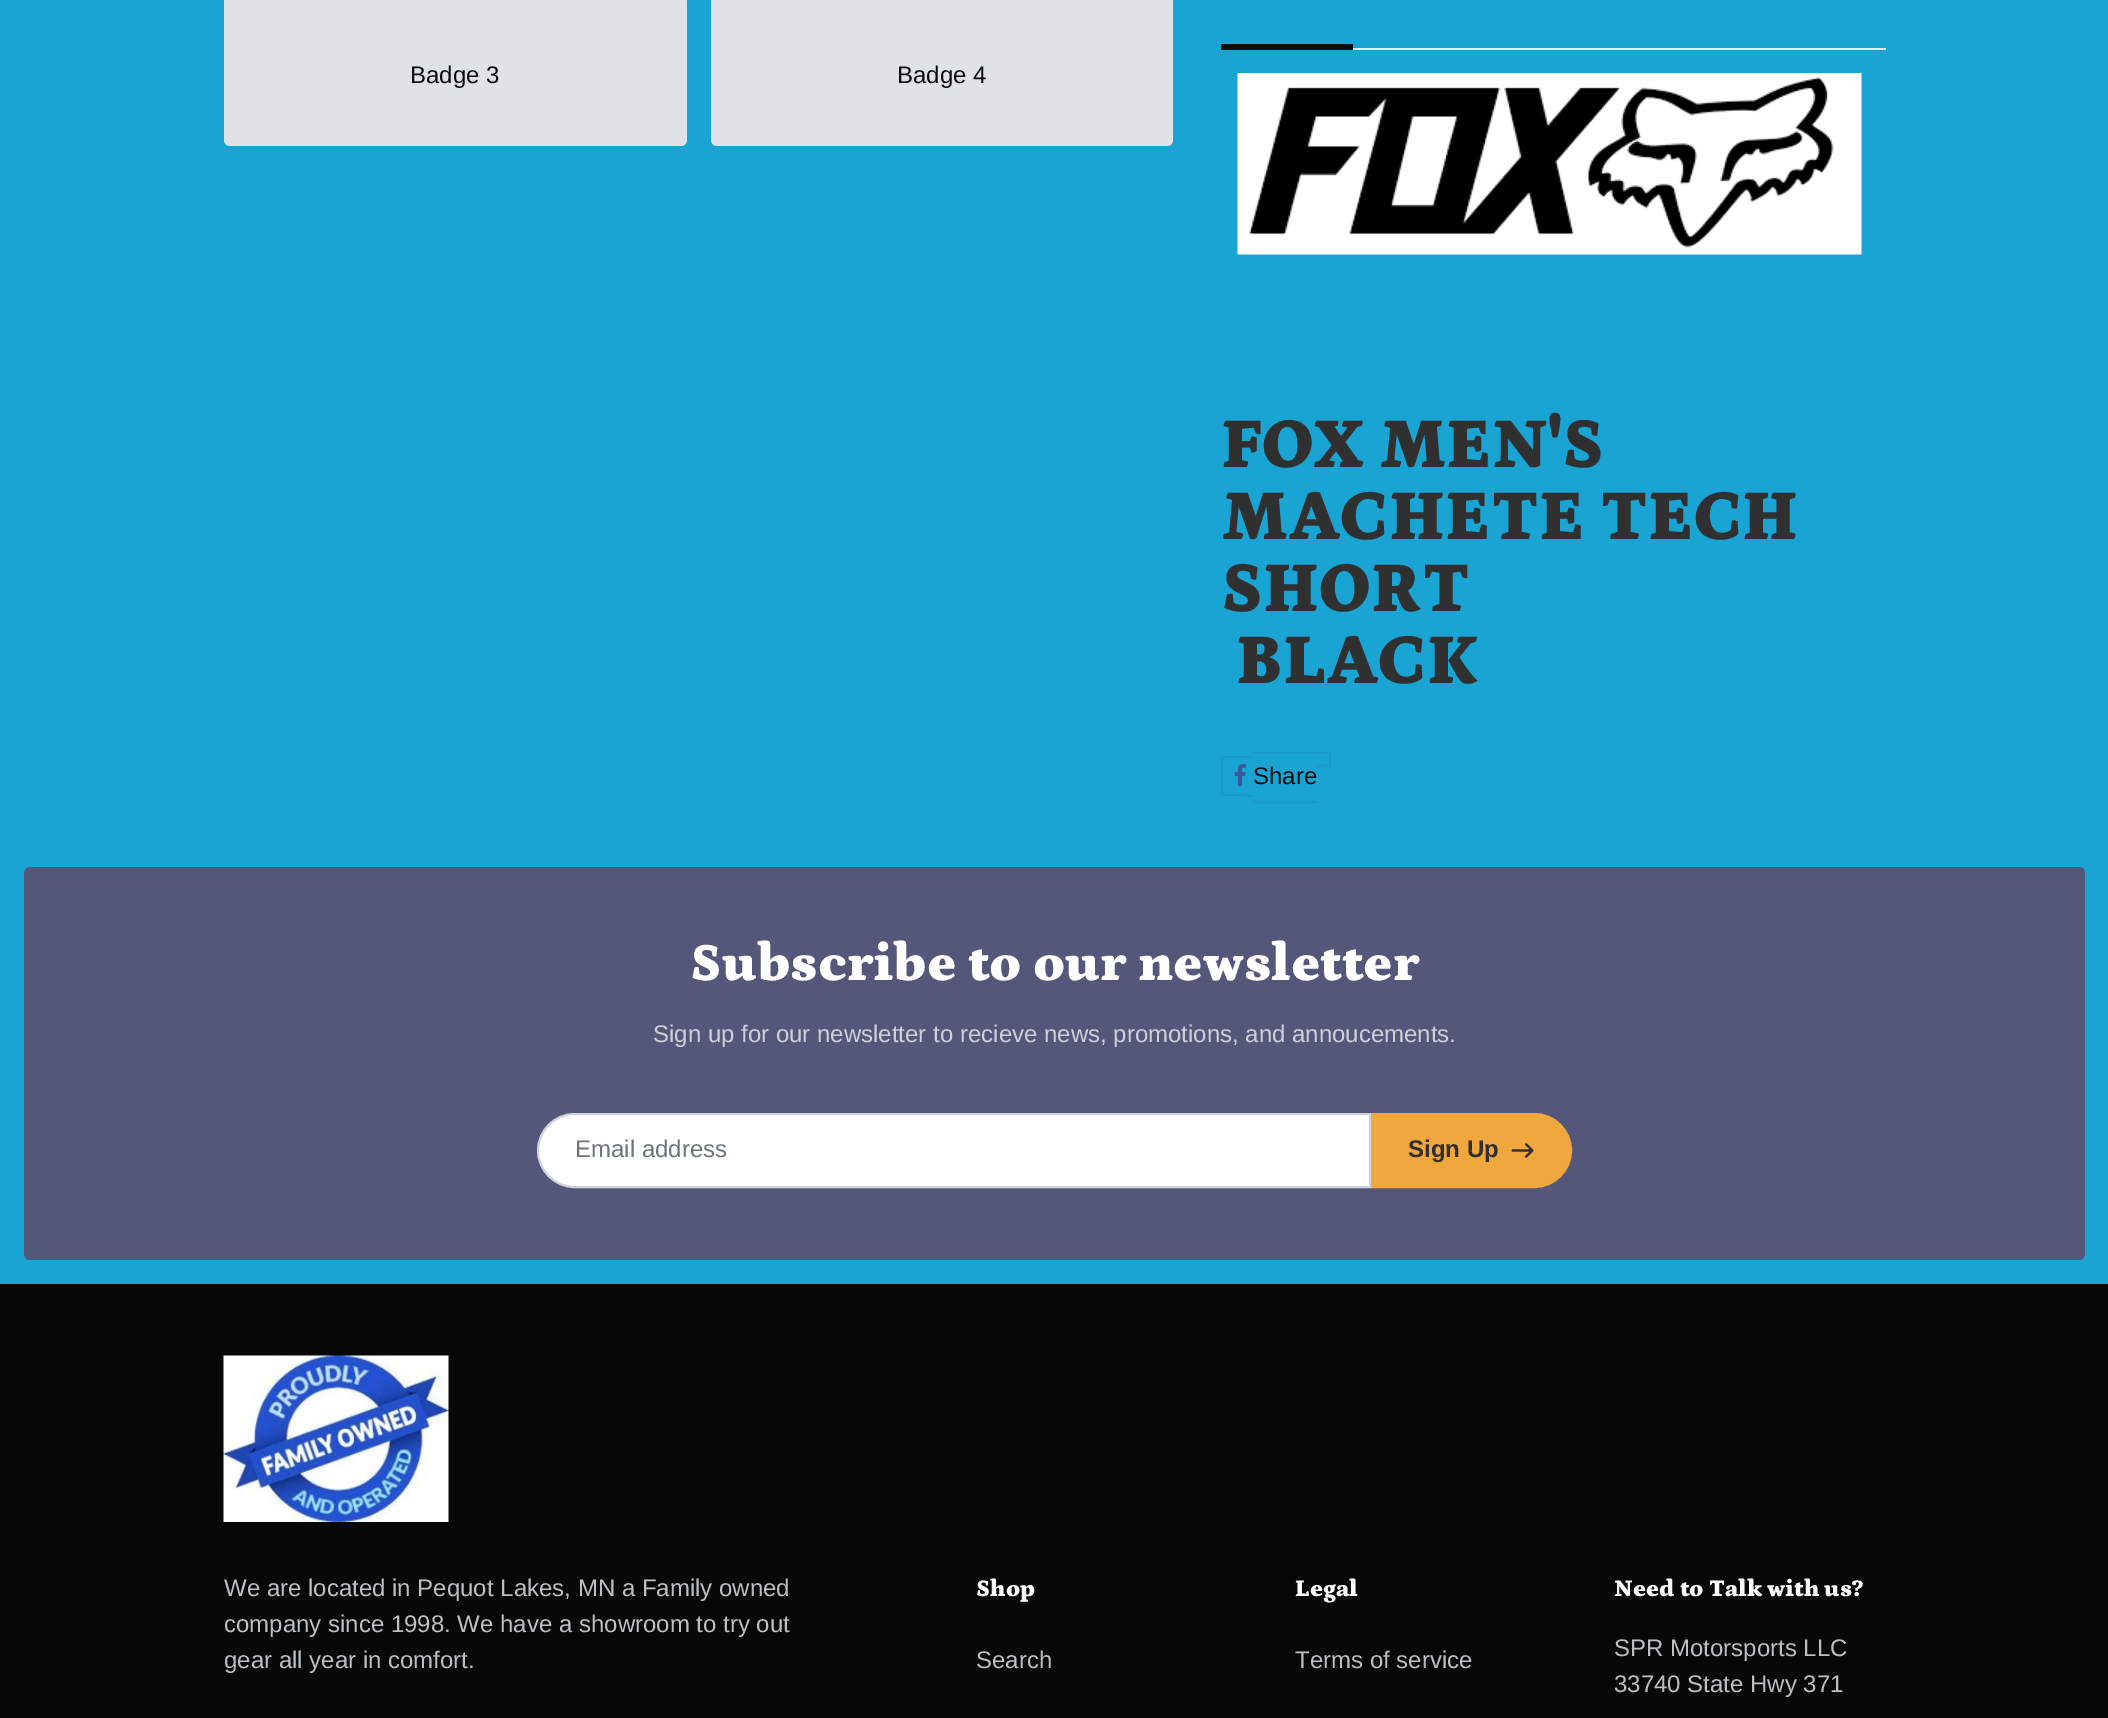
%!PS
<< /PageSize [2108 1718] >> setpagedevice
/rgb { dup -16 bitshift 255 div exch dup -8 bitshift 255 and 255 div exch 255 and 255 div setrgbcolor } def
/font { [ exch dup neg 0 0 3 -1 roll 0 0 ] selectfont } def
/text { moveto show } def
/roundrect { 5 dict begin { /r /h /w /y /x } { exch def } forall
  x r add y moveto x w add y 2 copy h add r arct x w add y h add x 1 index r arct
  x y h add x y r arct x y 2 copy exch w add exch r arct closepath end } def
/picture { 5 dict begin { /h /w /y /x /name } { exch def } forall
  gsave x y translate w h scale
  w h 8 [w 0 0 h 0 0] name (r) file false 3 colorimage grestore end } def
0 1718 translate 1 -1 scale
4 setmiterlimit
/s1 { /LiberationSans-Regular 24 font 16#0D0C0D rgb } def
/s2 { /Petrona-Black 72 font 16#303030 rgb } def
/s3 { /Petrona-Black 54 font 16#FFFFFF rgb } def
/s4 { /LiberationSans-Regular 24 font 16#CFD0D9 rgb } def
/s5 { /LiberationSans-Regular 24 font 16#6C757D rgb } def
/s6 { /LiberationSans-Bold 24 font 16#303030 rgb } def
/s7 { /LiberationSans-Regular 24 font 16#BDC0C2 rgb } def
/s8 { /Petrona-Black 24 font 16#F9FBFC rgb } def
16#19A4D4 rgb
0 0 2108 1718 rectfill
16#E1E2E8 rgb
224 -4 463 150 6 roundrect fill
s1
(Badge 3) 410 83 text
16#E1E2E8 rgb
711 -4 462 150 6 roundrect fill
s1
(Badge 4) 897 83 text
16#ECEDF2 rgb
1353 48 533 2 rectfill
16#0D0C0D rgb
1221 44 132 6 rectfill
(pic1.raw) 1237 73 625 182 picture
s2
(FOX MEN'S) 1221 467 text
(MACHETE TECH) 1221 539 text
(SHORT) 1221 611 text
(BLACK) 1236 683 text
16#1C9BC8 rgb
1221 756 32 2 rectfill
1221 794 26 2 rectfill
1221 756 2 39 rectfill
1247 795 6 2 rectfill
1253 752 78 2 rectfill
1253 801 64 2 rectfill
1329 752 2 15 rectfill
1317 765 14 2 rectfill
(pic2.raw) 1234 764 13 23 picture
s1
(Share) 1253 784 text
16#545779 rgb
24 867 2061 393 6 roundrect fill
s3
(Subscribe to our newsletter) 690 980 text
s4
(Sign up for our newsletter to recieve news, promotions, and annoucements.) 653 1042 text
16#FFFFFF rgb
574.5 1114 moveto 1370 1114 lineto 1370 1187 lineto 574.5 1187 lineto 554.5 1187 538 1170.5 538 1150.5 curveto 538 1130.5 554.5 1114 574.5 1114 curveto closepath gsave fill grestore
16#CED4DA rgb
2 setlinewidth
stroke
s5
(Email address) 575 1157 text
16#F0A73E rgb
1372 1114 moveto 1534.5 1114 lineto 1554.5 1114 1571 1130.5 1571 1150.5 curveto 1571 1170.5 1554.5 1187 1534.5 1187 curveto 1372 1187 lineto closepath gsave fill grestore
stroke
s6
(Sign Up) 1408 1157 text
(pic3.raw) 1511 1143 23 15 picture
16#080809 rgb
0 1284 2108 434 rectfill
(pic4.raw) 223 1355 226 167 picture
s7
(We are located in Pequot Lakes, MN a Family owned) 224 1596 text
(company since 1998. We have a showroom to try out) 224 1632 text
(gear all year in comfort.) 224 1668 text
s8
(Shop) 976 1596 text
s7
(Search) 976 1668 text
s8
(Legal) 1295 1596 text
s7
(Terms of service) 1295 1668 text
s8
(Need to Talk with us?) 1614 1596 text
s7
(SPR Motorsports LLC) 1614 1656 text
(33740 State Hwy 371) 1614 1692 text
showpage
